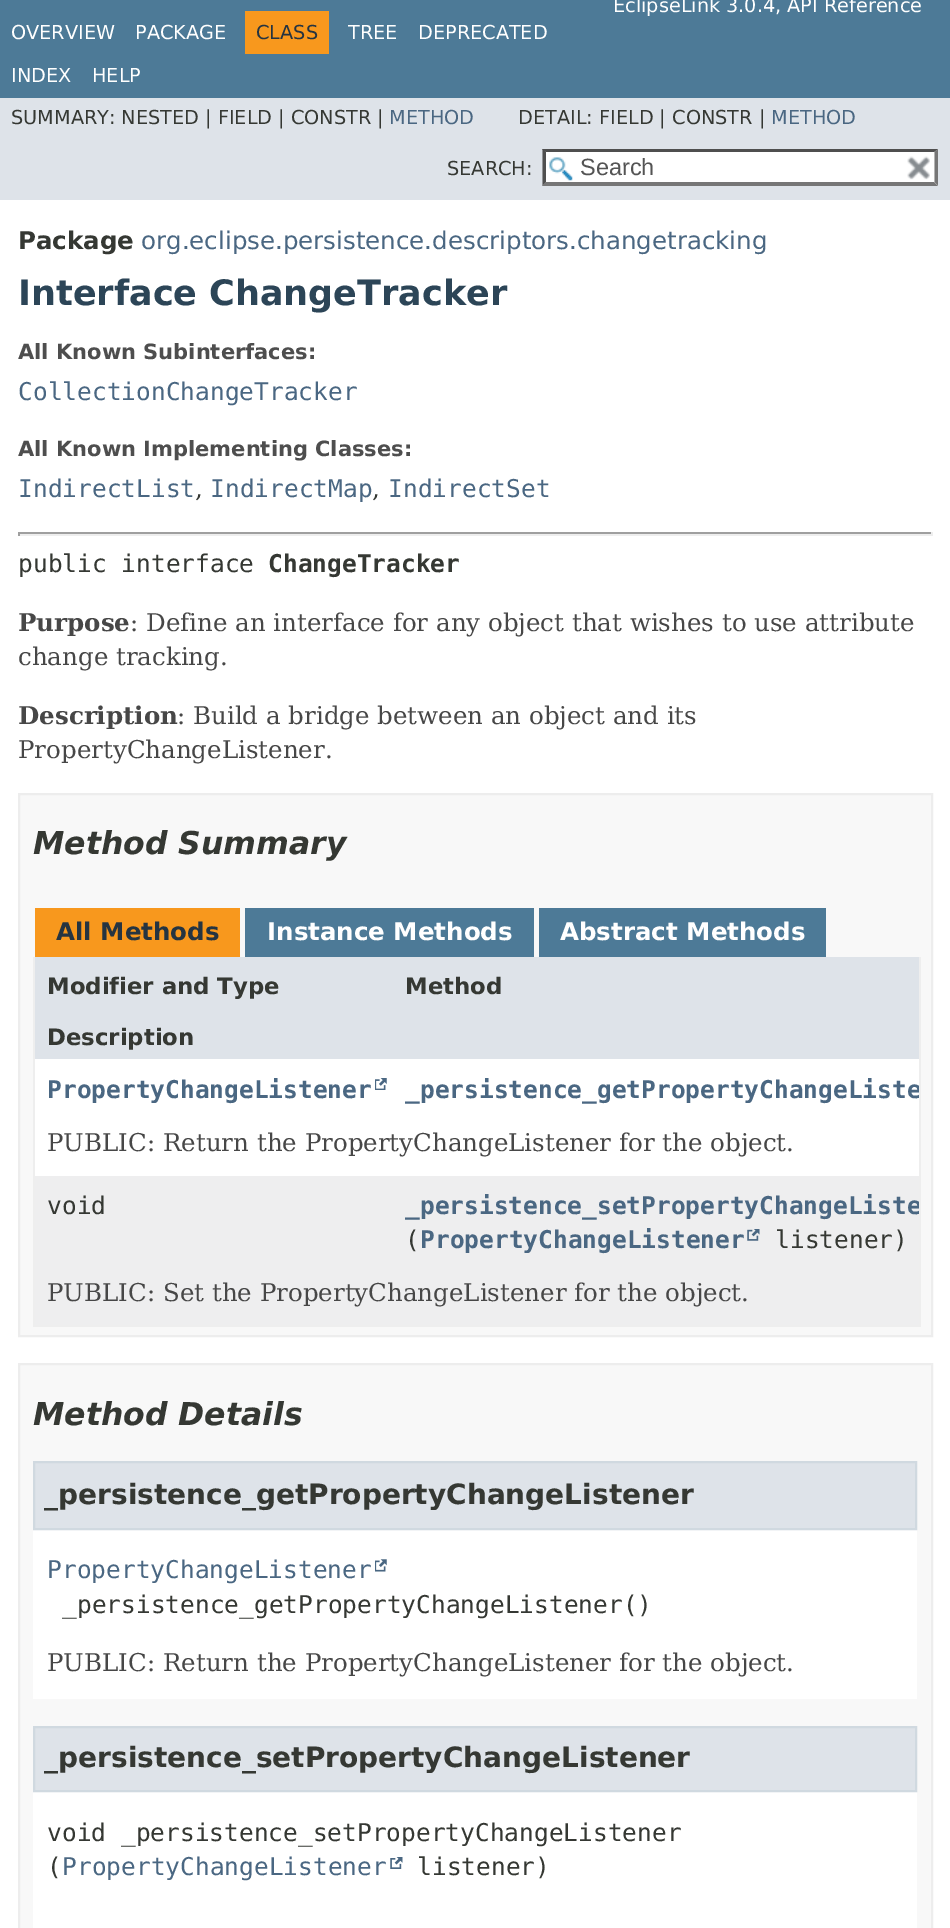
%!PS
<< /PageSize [950 1928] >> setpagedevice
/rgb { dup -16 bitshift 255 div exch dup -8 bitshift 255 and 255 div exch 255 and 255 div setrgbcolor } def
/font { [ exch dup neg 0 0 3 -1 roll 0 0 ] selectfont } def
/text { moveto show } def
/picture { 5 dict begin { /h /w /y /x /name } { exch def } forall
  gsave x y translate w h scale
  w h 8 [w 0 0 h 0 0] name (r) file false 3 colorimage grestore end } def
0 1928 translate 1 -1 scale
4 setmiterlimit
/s1 { /DejaVuSans-Regular 19.25 font 16#FFFFFF rgb } def
/s2 { /DejaVuSans-Regular 19.25 font 16#253441 rgb } def
/s3 { /DejaVuSans-Regular 19.25 font 16#353833 rgb } def
/s4 { /DejaVuSans-Regular 19.25 font 16#4A6782 rgb } def
/s5 { /LiberationSans-Regular 23.5 font 16#545454 rgb } def
/s6 { /DejaVuSans-Bold 24.5 font 16#353833 rgb } def
/s7 { /DejaVuSans-Regular 24.5 font 16#4A6782 rgb } def
/s8 { /DejaVuSans-Bold 35 font 16#2C4557 rgb } def
/s9 { /DejaVuSans-Bold 21 font 16#4E4E4E rgb } def
/s10 { /DejaVuSansMono-Regular 24.5 font 16#4A6782 rgb } def
/s11 { /DejaVuSerif-Regular 24.5 font 16#353833 rgb } def
/s12 { /DejaVuSansMono-Regular 24.5 font 16#353833 rgb } def
/s13 { /DejaVuSansMono-Bold 24.5 font 16#353833 rgb } def
/s14 { /DejaVuSerif-Bold 24.5 font 16#474747 rgb } def
/s15 { /DejaVuSerif-Regular 24.5 font 16#474747 rgb } def
/s16 { /DejaVuSans-BoldItalic 31.5 font 16#353833 rgb } def
/s17 { /DejaVuSans-Bold 24.5 font 16#253441 rgb } def
/s18 { /DejaVuSans-Bold 24.5 font 16#FFFFFF rgb } def
/s19 { /DejaVuSans-Bold 22.75 font 16#353833 rgb } def
/s20 { /DejaVuSansMono-Bold 24.5 font 16#4A6782 rgb } def
/s21 { /DejaVuSans-Bold 28 font 16#353833 rgb } def
16#FFFFFF rgb
0 0 950 1928 rectfill
16#4D7A97 rgb
0 0 950 98 rectfill
s1
(EclipseLink 3.0.4, API Reference) 613 12 text
(OVERVIEW) 11 39 text
(PACKAGE) 135 39 text
16#F8981D rgb
245 11 84 43 rectfill
s2
(CLASS) 256 39 text
s1
(TREE) 348 39 text
(DEPRECATED) 418 39 text
(INDEX) 11 82 text
(HELP) 92 82 text
16#DEE3E9 rgb
0 98 950 102 rectfill
s3
(SUMMARY: NESTED | FIELD | CONSTR |) 11 124 text
s4
(METHOD) 389 124 text
s3
(DETAIL: FIELD | CONSTR |) 518 124 text
s4
(METHOD) 771 124 text
s3
(SEARCH:) 447 175 text
16#FFFFFF rgb
543 149 395 37 rectfill
(pic1.raw) 549 157 24 24 picture
16#4F4F4F rgb
542 149 moveto 938 149 lineto 934 152 lineto 546 152 lineto closepath fill
16#767676 rgb
938 149 moveto 938 185.5 lineto 934.5 182 lineto 934.5 152 lineto closepath fill
938 186 moveto 542 186 lineto 546 182 lineto 934 182 lineto closepath fill
16#4F4F4F rgb
542.5 185.5 moveto 542.5 149 lineto 546 152 lineto 546 182 lineto closepath fill
s5
(Search) 580 175 text
(pic2.raw) 907 156 23 24 picture
s6
(Package) 18 249 text
s7
(org.eclipse.persistence.descriptors.changetracking) 141 249 text
s8
(Interface ChangeTracker) 18 305 text
s9
(All Known Subinterfaces:) 18 359 text
s10
(CollectionChangeTracker) 18 400 text
s9
(All Known Implementing Classes:) 18 456 text
s10
(IndirectList) 18 497 text
s11
(,) 195 497 text
s10
(IndirectMap) 210 497 text
s11
(,) 372 497 text
s10
(IndirectSet) 388 497 text
16#9F9F9F rgb
18 532 915 2 rectfill
16#EEEEEE rgb
931 532 2 4 rectfill
18 534 915 2 rectfill
16#9F9F9F rgb
18 532 2 4 rectfill
s12
(public interface) 18 572 text
s13
(ChangeTracker) 268 572 text
s14
(Purpose) 18 631 text
s15
(: Define an interface for any object that wishes to use attribute) 130 631 text
(change tracking.) 18 665 text
s14
(Description) 18 724 text
s15
(: Build a bridge between an object and its) 177 724 text
(PropertyChangeListener.) 18 758 text
16#F8F8F8 rgb
19 794 moveto 932 794 lineto 932 1336 lineto 19 1336 lineto closepath gsave fill grestore
16#EDEDED rgb
2 setlinewidth
stroke
s16
(Method Summary) 33 854 text
16#F8981D rgb
35 908 205 49 rectfill
s17
(All Methods) 56 940 text
16#4D7A97 rgb
245 908 289 49 rectfill
s18
(Instance Methods) 267 940 text
16#4D7A97 rgb
539 908 287 49 rectfill
s18
(Abstract Methods) 560 940 text
16#EEEEEE rgb
919 957 2 370 rectfill
33 1325 888 2 rectfill
33 957 2 370 rectfill
16#DEE3E9 rgb
35 957 884 51 rectfill
s19
(Modifier and Type) 47 994 text
(Method) 405 994 text
16#DEE3E9 rgb
35 1008 884 51 rectfill
s19
(Description) 47 1045 text
16#FFFFFF rgb
35 1059 884 54 rectfill
s20
(PropertyChangeListener) 47 1098 text
(pic3.raw) 375 1078 12 12 picture
gsave
392 1059 527 54 rectclip
(_persistence_getPropertyChangeListe) 405 1098 text
grestore
16#FFFFFF rgb
35 1113 884 63 rectfill
s15
(PUBLIC: Return the PropertyChangeListener for the object.) 47 1151 text
16#EEEEEF rgb
35 1176 884 88 rectfill
s12
(void) 47 1214 text
gsave
392 1176 527 88 rectclip
s20
(_persistence_setPropertyChangeListe) 405 1214 text
grestore
(\() 405 1248 text
s20
(PropertyChangeListener) 420 1248 text
(pic4.raw) 747 1229 13 12 picture
s12
(listener\)) 775 1248 text
16#EEEEEF rgb
35 1264 884 61 rectfill
s15
(PUBLIC: Set the PropertyChangeListener for the object.) 47 1301 text
16#F8F8F8 rgb
19 1364 moveto 932 1364 lineto 932 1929 lineto 19 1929 lineto closepath gsave fill grestore
16#EDEDED rgb
stroke
s16
(Method Details) 33 1425 text
16#FFFFFF rgb
33 1530 884 169 rectfill
16#DEE3E9 rgb
34 1462 moveto 916 1462 lineto 916 1529 lineto 34 1529 lineto closepath gsave fill grestore
16#D0D9E0 rgb
stroke
s21
(_persistence_getPropertyChangeListener) 44 1504 text
s10
(PropertyChangeListener) 47 1578 text
(pic5.raw) 375 1559 12 13 picture
s12
(_persistence_getPropertyChangeListener\(\)) 62 1613 text
s15
(PUBLIC: Return the PropertyChangeListener for the object.) 47 1671 text
16#FFFFFF rgb
33 1792 884 136 rectfill
16#DEE3E9 rgb
34 1727 moveto 916 1727 lineto 916 1791 lineto 34 1791 lineto closepath gsave fill grestore
16#D0D9E0 rgb
stroke
s21
(_persistence_setPropertyChangeListener) 44 1767 text
s12
(void _persistence_setPropertyChangeListener) 47 1841 text
(\() 47 1875 text
s10
(PropertyChangeListener) 62 1875 text
(pic6.raw) 390 1857 13 12 picture
s12
(listener\)) 417 1875 text
showpage
